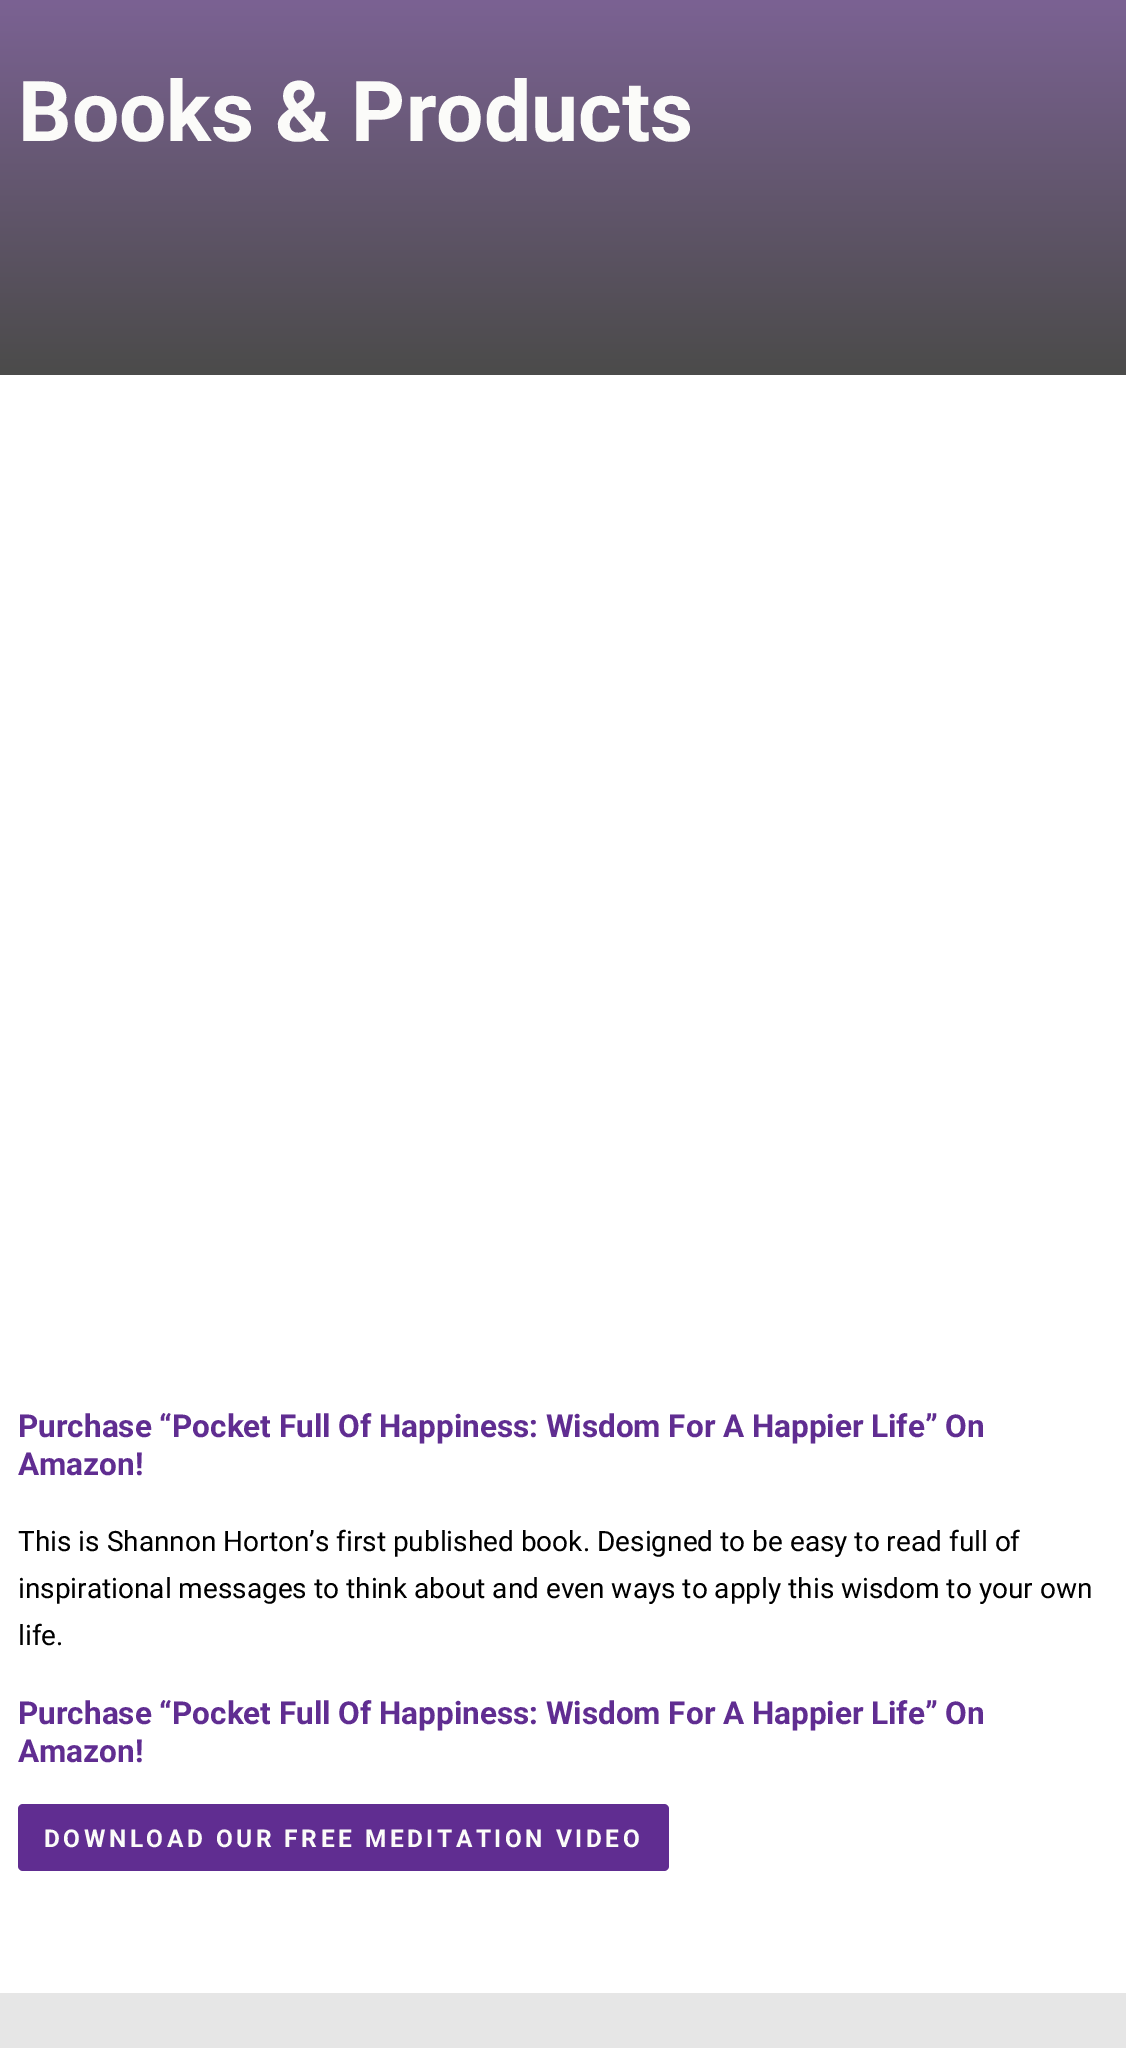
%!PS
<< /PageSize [1126 2048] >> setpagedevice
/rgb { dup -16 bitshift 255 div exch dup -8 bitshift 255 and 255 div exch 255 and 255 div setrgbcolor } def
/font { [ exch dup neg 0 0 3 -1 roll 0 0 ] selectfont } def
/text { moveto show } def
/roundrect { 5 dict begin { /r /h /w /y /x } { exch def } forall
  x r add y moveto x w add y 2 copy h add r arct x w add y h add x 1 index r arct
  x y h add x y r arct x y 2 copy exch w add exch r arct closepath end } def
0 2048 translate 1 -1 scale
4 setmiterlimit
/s1 { /Roboto-Bold 84 font 16#FBFBF9 rgb } def
/s2 { /Roboto-Bold 31.5 font 16#602D91 rgb } def
/s3 { /Roboto-Regular 28 font 16#000000 rgb } def
16#FFFFFF rgb
0 0 1126 2048 rectfill
gsave 0 0 moveto 1126 0 lineto 1126 375 lineto 0 375 lineto closepath clip newpath
<< /ShadingType 2 /ColorSpace /DeviceRGB /Coords [564 -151 564 375] /Extend [true true] /Function << /FunctionType 2 /Domain [0 1] /C0 [0.557 0.42 0.69] /C1 [0.294 0.294 0.29] /N 1 >> >> shfill grestore
s1
(Books & Products) 18 141 text
s2
(Purchase “Pocket Full Of Happiness: Wisdom For A Happier Life” On) 18 1437 text
(Amazon!) 18 1475 text
s3
(This is Shannon Horton’s first published book. Designed to be easy to read full of) 18 1551 text
(inspirational messages to think about and even ways to apply this wisdom to your own) 18 1598 text
(life.) 18 1645 text
s2
(Purchase “Pocket Full Of Happiness: Wisdom For A Happier Life” On) 18 1724 text
(Amazon!) 18 1762 text
18 1804 651 67 5 roundrect fill
/Roboto-Bold 24.5 font
16#FBFBF9 rgb
44 1847 moveto 3.5 0 (DOWNLOAD OUR FREE MEDITATION VIDEO) ashow
16#E6E6E6 rgb
0 1993 1126 55 rectfill
showpage
